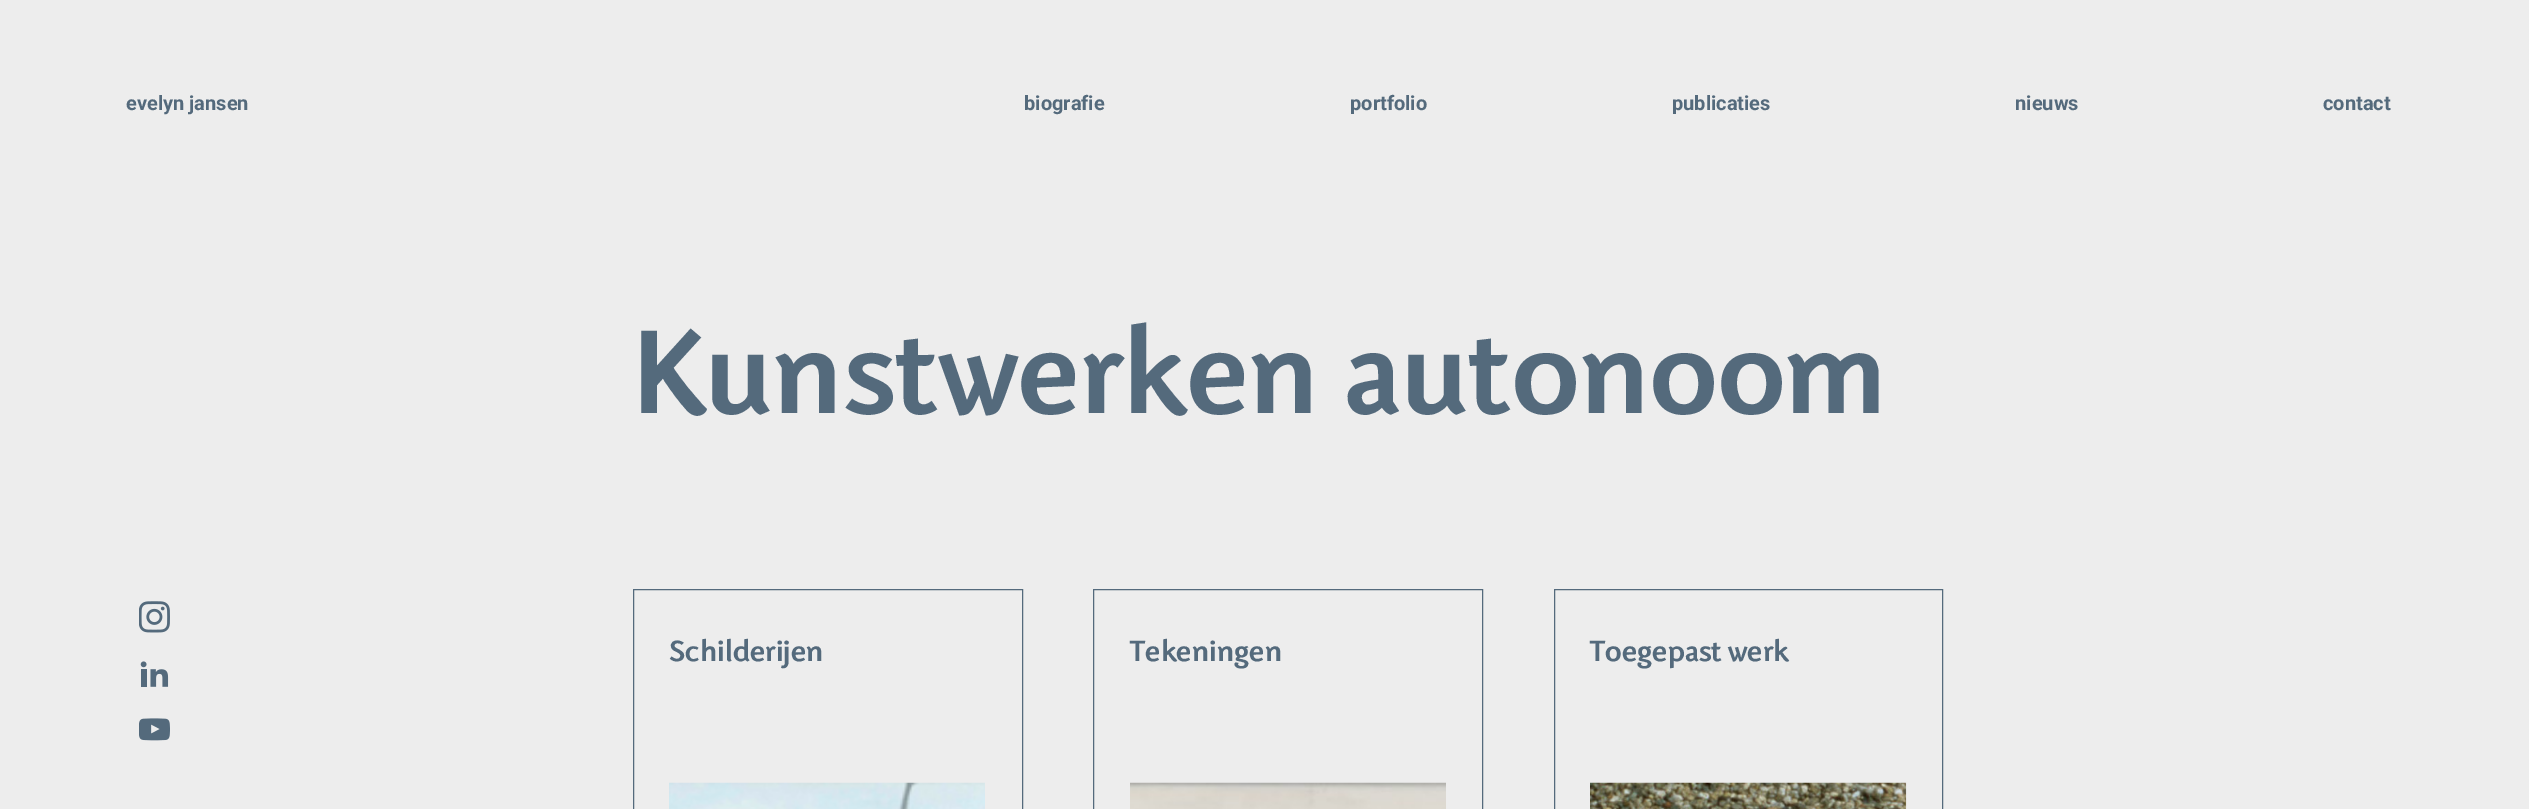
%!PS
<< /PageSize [2529 809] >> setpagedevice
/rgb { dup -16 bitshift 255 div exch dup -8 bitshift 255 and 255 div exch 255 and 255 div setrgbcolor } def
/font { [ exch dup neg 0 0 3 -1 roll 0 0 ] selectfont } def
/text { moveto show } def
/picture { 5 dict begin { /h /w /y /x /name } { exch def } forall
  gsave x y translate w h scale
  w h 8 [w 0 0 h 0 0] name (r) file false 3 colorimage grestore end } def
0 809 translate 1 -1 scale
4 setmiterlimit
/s1 { /Roboto-Bold 20 font 16#546A7C rgb } def
/s2 { /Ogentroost-Bold 130 font 16#546A7C rgb } def
/s3 { /Ogentroost-Bold 32 font 16#546A7C rgb } def
16#EDEDED rgb
0 0 2529 809 rectfill
s1
(evelyn jansen) 126 110 text
(biografie) 1024 110 text
(portfolio) 1350 110 text
(publicaties) 1672 110 text
(nieuws) 2015 110 text
(contact) 2323 110 text
(pic1.raw) 139 601 31 32 picture
(pic2.raw) 140 661 29 26 picture
(pic3.raw) 139 718 31 23 picture
s2
(Kunstwerken autonoom) 632 413 text
633.5 589.5 389 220 rectstroke
s3
(Schilderijen) 669 661 text
(pic4.raw) 669 782 316 27 picture
1093.5 589.5 389 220 rectstroke
(Tekeningen) 1130 661 text
(pic5.raw) 1130 782 316 27 picture
1554.5 589.5 388 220 rectstroke
(Toegepast werk) 1590 661 text
(pic6.raw) 1590 782 317 27 picture
showpage
